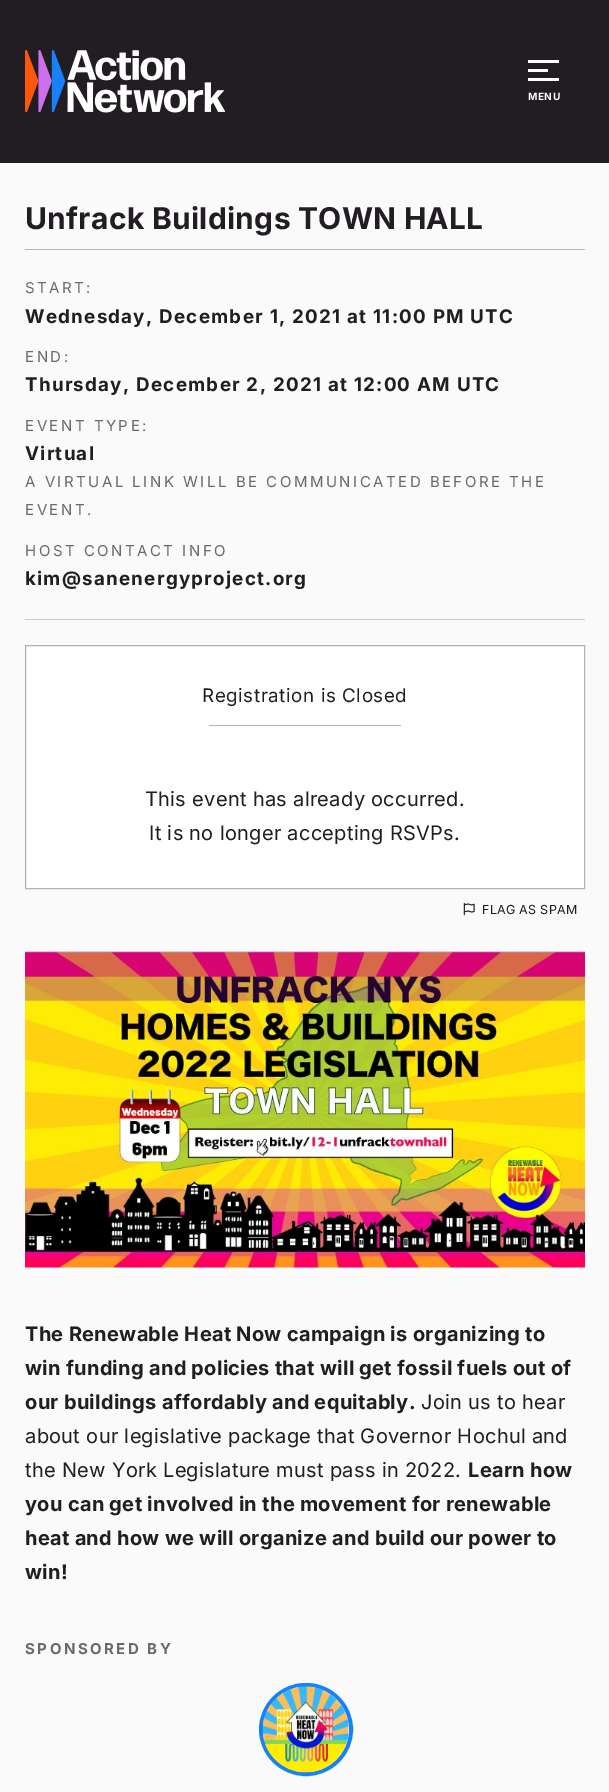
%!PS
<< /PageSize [609 1792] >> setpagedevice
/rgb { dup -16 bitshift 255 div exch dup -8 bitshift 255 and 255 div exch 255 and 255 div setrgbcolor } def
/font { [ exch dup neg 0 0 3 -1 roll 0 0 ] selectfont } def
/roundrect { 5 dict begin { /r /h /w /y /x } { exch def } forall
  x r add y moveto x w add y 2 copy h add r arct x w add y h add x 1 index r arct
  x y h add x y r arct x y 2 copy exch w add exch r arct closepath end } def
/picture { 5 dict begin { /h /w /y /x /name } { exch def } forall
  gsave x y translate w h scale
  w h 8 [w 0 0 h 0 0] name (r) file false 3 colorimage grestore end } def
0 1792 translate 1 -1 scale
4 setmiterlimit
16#211D22 rgb
0 0 609 1792 rectfill
(pic1.raw) 25 50 200 63 picture
16#FFFFFF rgb
528 69 20 3 rectfill
528 60 31 3 rectfill
528 78 31 3 rectfill
/Inter-Bold 10 font
528 100 moveto 0.5 0 (MENU) ashow
16#FAFAFA rgb
0 163 609 1629 rectfill
16#B3B3B3 rgb
25 249 560 1 rectfill
/Inter-Bold 30 font
16#211D22 rgb
25 229 moveto 0.3 0 (Unfrack Buildings TOWN HALL) ashow
16#CBCBCB rgb
25 619 560 1 rectfill
/Inter-Regular 15 font
16#6C696C rgb
25 293 moveto 2.5 0 (START:) ashow
/Inter-Bold 18.75 font
16#211D22 rgb
25 323 moveto 1.25 0 (Wednesday, December 1, 2021 at 11:00 PM UTC) ashow
/Inter-Regular 15 font
16#6C696C rgb
25 362 moveto 2.5 0 (END:) ashow
/Inter-Bold 18.75 font
16#211D22 rgb
25 391 moveto 1.25 0 (Thursday, December 2, 2021 at 12:00 AM UTC) ashow
/Inter-Regular 15 font
16#6C696C rgb
25 431 moveto 2.5 0 (EVENT TYPE:) ashow
/Inter-Bold 18.75 font
16#211D22 rgb
25 460 moveto 1.25 0 (Virtual) ashow
/Inter-Regular 15 font
16#6C696C rgb
25 487 moveto 2.5 0 (A VIRTUAL LINK WILL BE COMMUNICATED BEFORE THE) ashow
25 515 moveto 2.5 0 (EVENT.) ashow
25 556 moveto 2.5 0 (HOST CONTACT INFO) ashow
/Inter-Bold 18.75 font
16#211D22 rgb
25 585 moveto 1.25 0 (kim@sanenergyproject.org) ashow
16#FFFFFF rgb
25.5 645.5 moveto 584.5 645.5 lineto 584.5 888.5 lineto 25.5 888.5 lineto closepath gsave fill grestore
16#B3B3B3 rgb
stroke
/Inter-Regular 18.75 font
16#211D22 rgb
202 702 moveto 0.6 0 (Registration is Closed) ashow
16#B3B3B3 rgb
209 725 192 1 rectfill
/Inter-Regular 20 font
16#211D22 rgb
145 806 moveto 0.3 0 (This event has already occurred.) ashow
149 840 moveto 0.3 0 (It is no longer accepting RSVPs.) ashow
(pic2.raw) 463 902 12 14 picture
/Inter-Regular 12.5 font
482 914 moveto 0.3 0 (FLAG AS SPAM) ashow
(pic3.raw) 25 951 560 317 picture
/Inter-Bold 20 font
25 1341 moveto 0.3 0 (The Renewable Heat Now campaign is organizing to) ashow
25 1375 moveto 0.3 0 (win funding and policies that will get fossil fuels out of) ashow
25 1409 moveto 0.3 0 (our buildings affordably and equitably.) ashow
/Inter-Regular 20 font
421 1409 moveto 0.3 0 (Join us to hear) ashow
25 1443 moveto 0.3 0 (about our legislative package that Governor Hochul and) ashow
25 1477 moveto 0.3 0 (the New York Legislature must pass in 2022.) ashow
/Inter-Bold 20 font
468 1477 moveto 0.3 0 (Learn how) ashow
25 1511 moveto 0.3 0 (you can get involved in the movement for renewable) ashow
25 1545 moveto 0.3 0 (heat and how we will organize and build our power to) ashow
25 1579 moveto 0.3 0 (win!) ashow
/Inter-Bold 15 font
16#6C696C rgb
25 1654 moveto 2.5 0 (SPONSORED BY) ashow
16#1781FA rgb
4 setlinewidth
261 1685 90 89 44.5 roundrect stroke
(pic4.raw) 262 1686 87 87 picture
showpage
